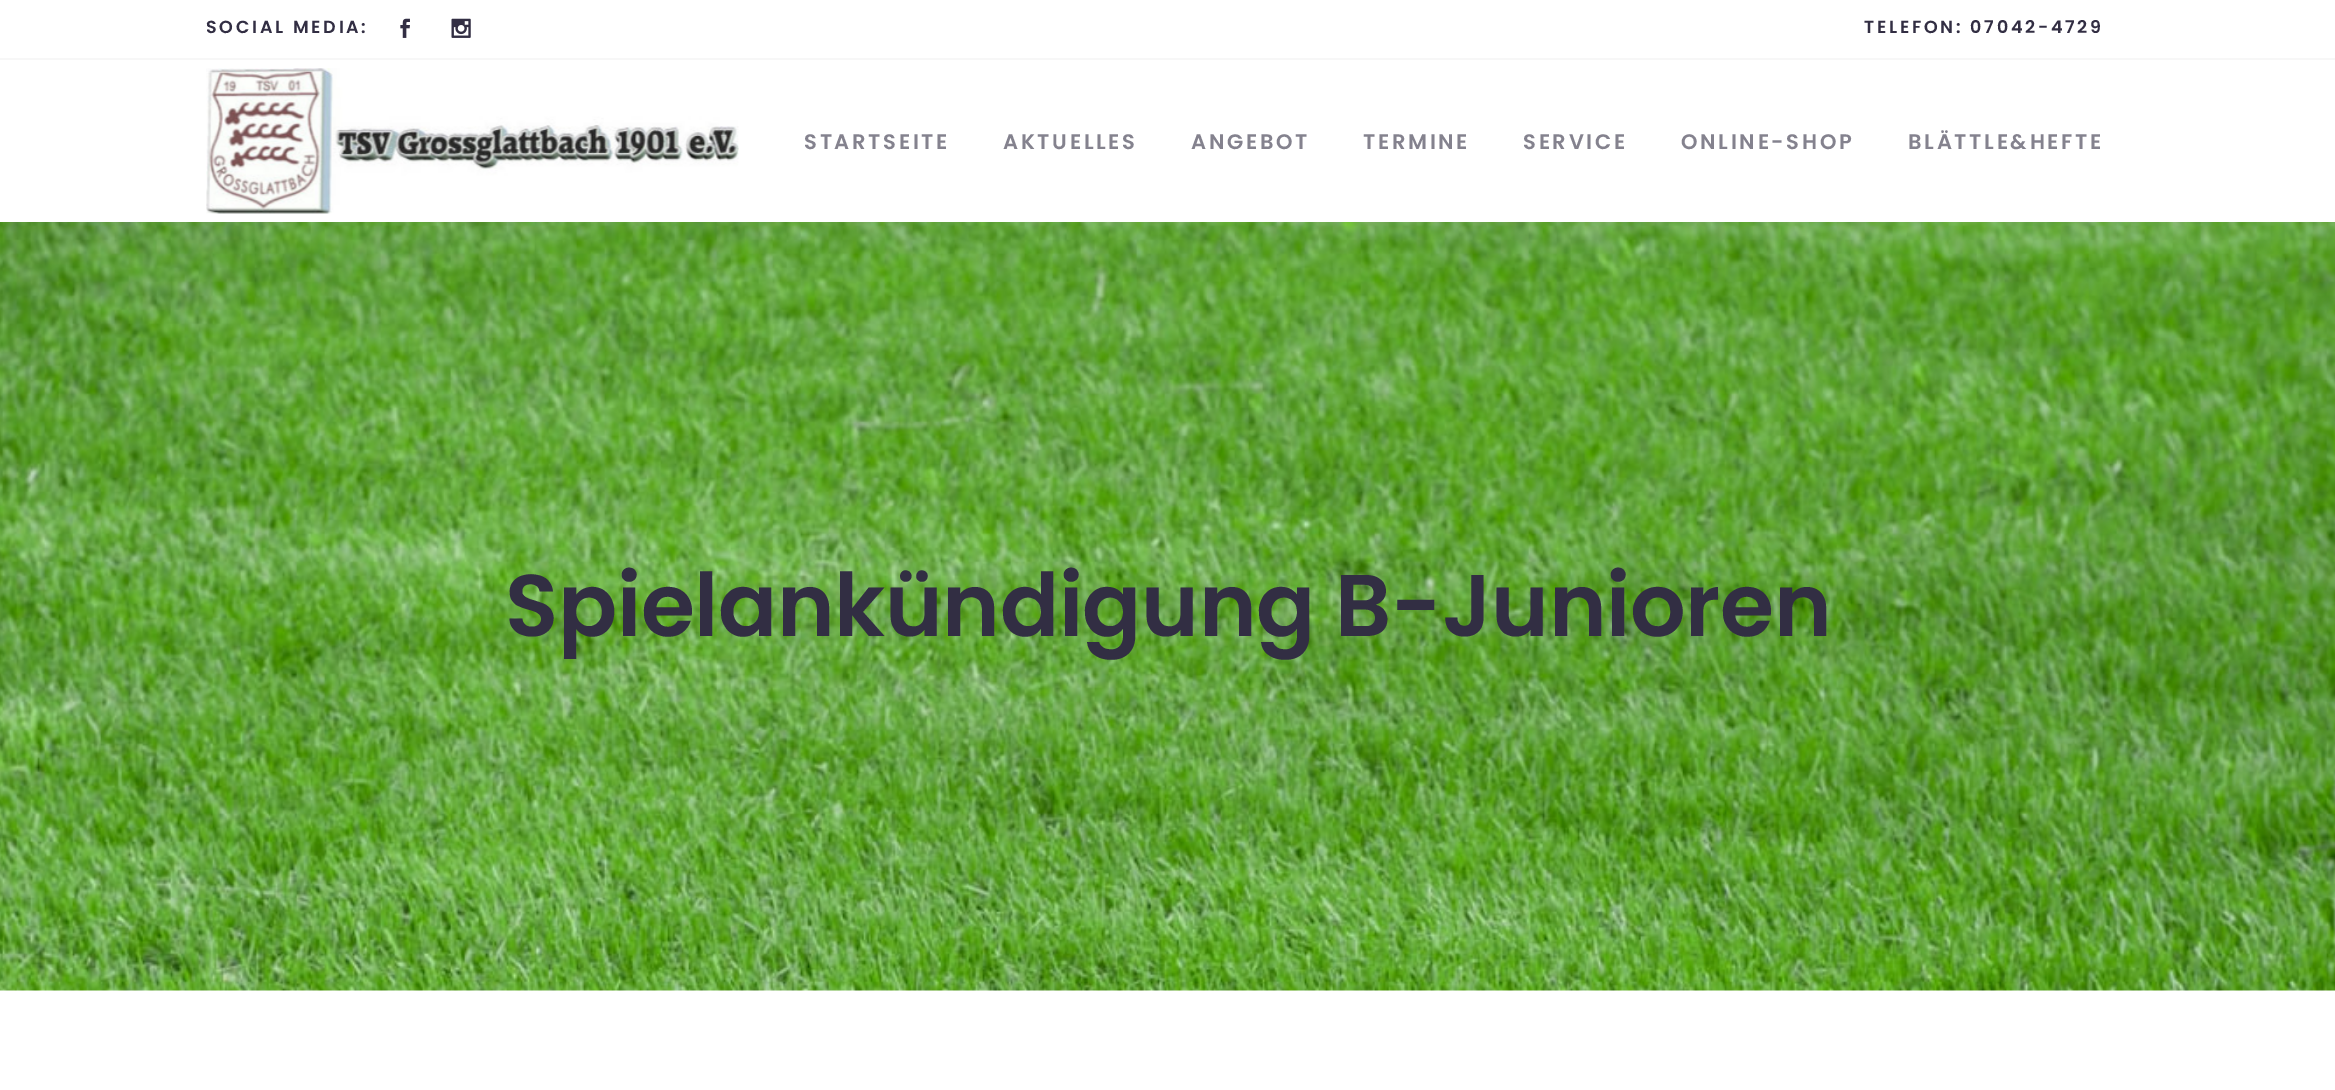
%!PS
<< /PageSize [2335 1090] >> setpagedevice
/rgb { dup -16 bitshift 255 div exch dup -8 bitshift 255 and 255 div exch 255 and 255 div setrgbcolor } def
/font { [ exch dup neg 0 0 3 -1 roll 0 0 ] selectfont } def
/picture { 5 dict begin { /h /w /y /x /name } { exch def } forall
  gsave x y translate w h scale
  w h 8 [w 0 0 h 0 0] name (r) file false 3 colorimage grestore end } def
0 1090 translate 1 -1 scale
4 setmiterlimit
16#FFFFFF rgb
0 0 2335 1090 rectfill
16#F7F7F7 rgb
0 58 2335 2 rectfill
/Poppins-SemiBold 17.5 font
16#322E43 rgb
206 33 moveto 2.75 0 (SOCIAL MEDIA:) ashow
(pic1.raw) 400 18 10 20 picture
(pic2.raw) 451 18 20 20 picture
1864 33 moveto 2.75 0 (TELEFON: 07042-4729) ashow
(pic3.raw) 206 68 533 146 picture
/Poppins-SemiBold 21 font
16#84828E rgb
804 149 moveto 2.75 0 (STARTSEITE) ashow
1003 149 moveto 2.75 0 (AKTUELLES) ashow
1191 149 moveto 2.75 0 (ANGEBOT) ashow
1363 149 moveto 2.75 0 (TERMINE) ashow
1523 149 moveto 2.75 0 (SERVICE) ashow
1681 149 moveto 2.75 0 (ONLINE-SHOP) ashow
1908 149 moveto 2.75 0 (BLÄTTLE&HEFTE) ashow
(pic4.raw) 0 222 2335 769 picture
/Poppins-SemiBold 87.5 font
16#322E43 rgb
505 636 moveto -0.45 0 (Spielankündigung B-Junioren) ashow
showpage
